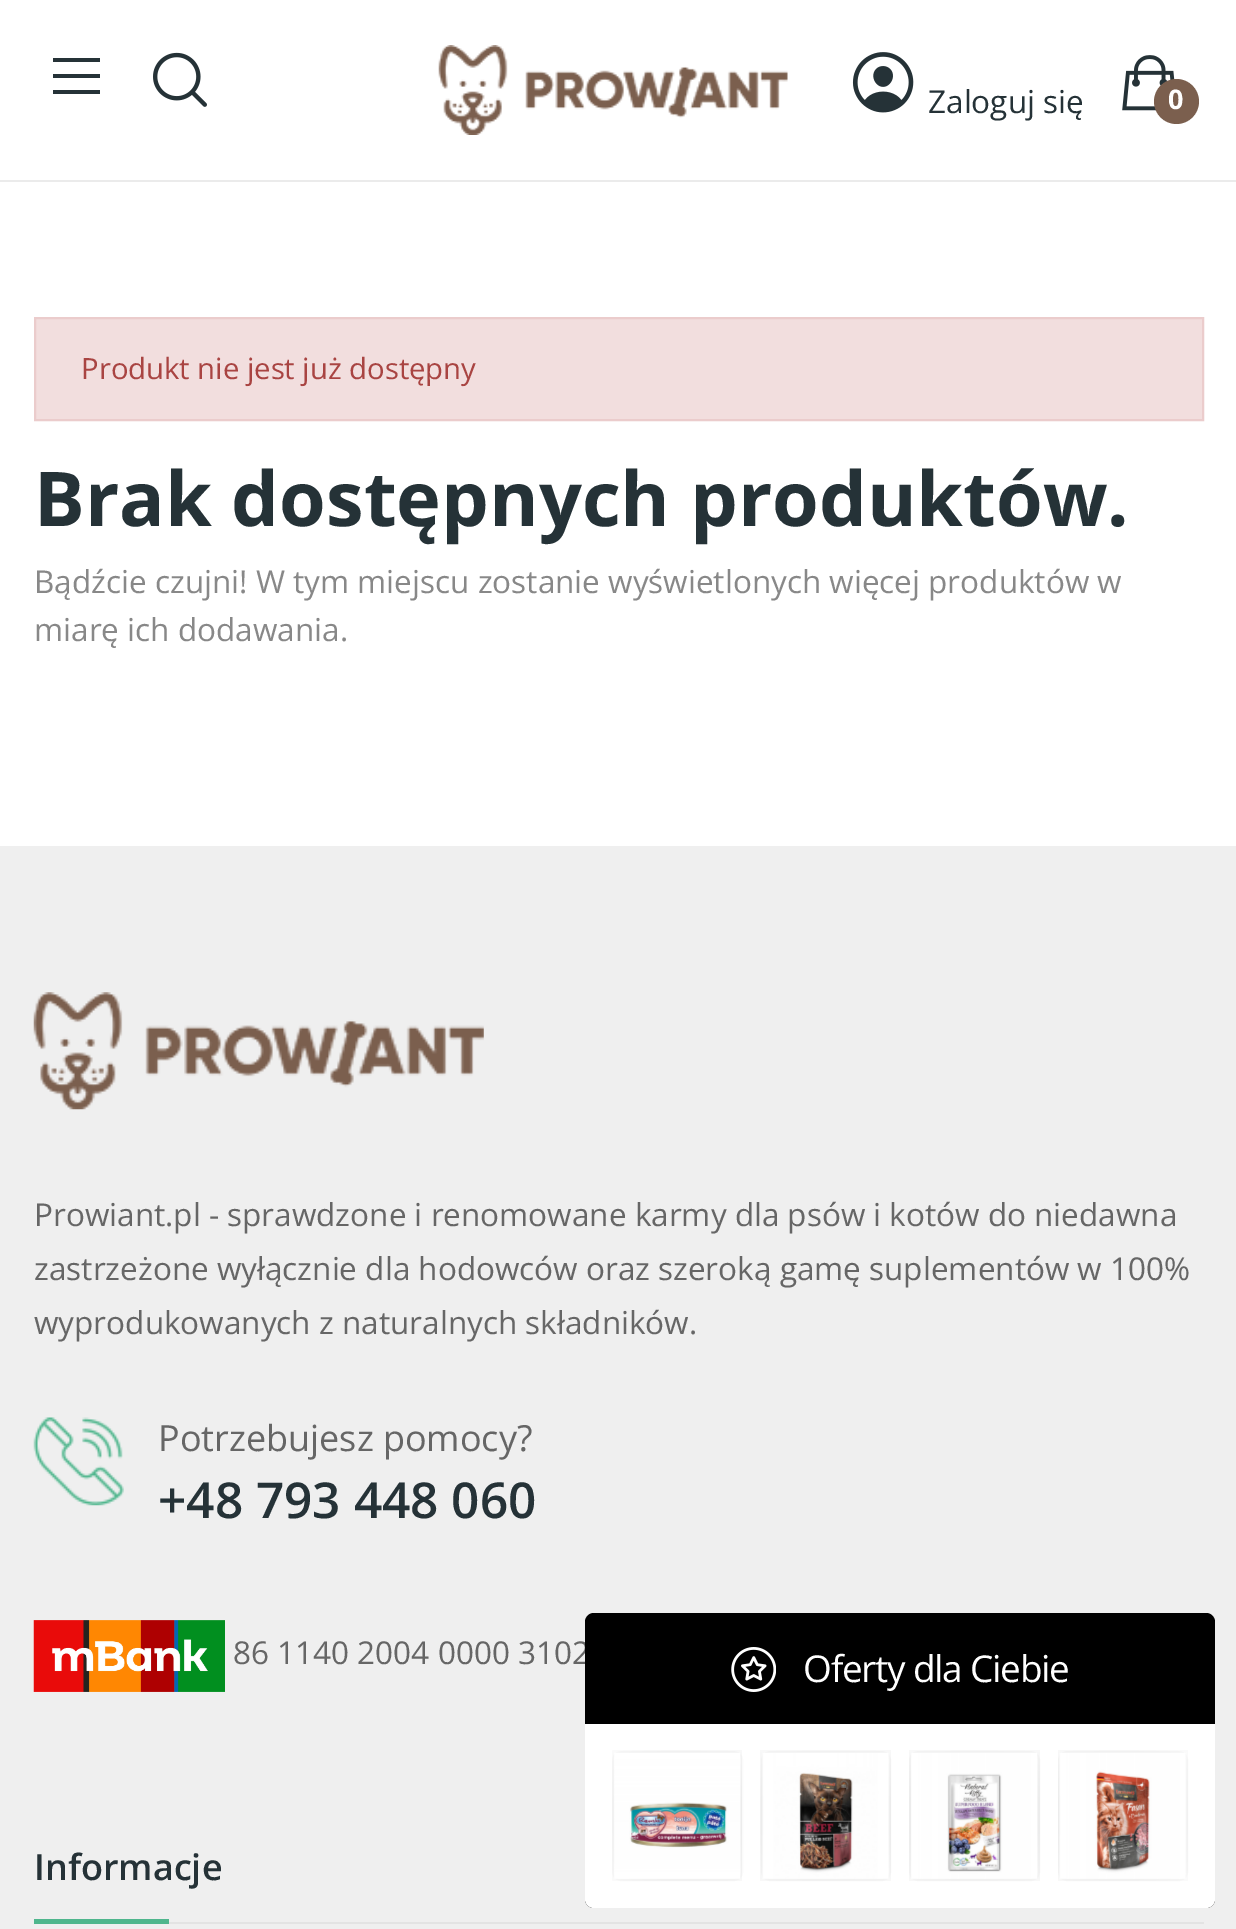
%!PS
<< /PageSize [1236 1929] >> setpagedevice
/rgb { dup -16 bitshift 255 div exch dup -8 bitshift 255 and 255 div exch 255 and 255 div setrgbcolor } def
/font { [ exch dup neg 0 0 3 -1 roll 0 0 ] selectfont } def
/text { moveto show } def
/circle { newpath 0 360 arc closepath } def
/roundrect { 5 dict begin { /r /h /w /y /x } { exch def } forall
  x r add y moveto x w add y 2 copy h add r arct x w add y h add x 1 index r arct
  x y h add x y r arct x y 2 copy exch w add exch r arct closepath end } def
/picture { 5 dict begin { /h /w /y /x /name } { exch def } forall
  gsave x y translate w h scale
  w h 8 [w 0 0 h 0 0] name (r) file false 3 colorimage grestore end } def
0 1929 translate 1 -1 scale
4 setmiterlimit
/s1 { /OpenSans-Regular 31.5 font 16#253237 rgb } def
/s2 { /OpenSans-Bold 27 font 16#FFFFFF rgb } def
/s3 { /OpenSans-Regular 29.25 font 16#A94442 rgb } def
/s4 { /OpenSans-Bold 75.6 font 16#253237 rgb } def
/s5 { /OpenSans-Regular 31.5 font 16#888888 rgb } def
/s6 { /OpenSans-Regular 31.5 font 16#666666 rgb } def
/s7 { /OpenSans-Regular 36 font 16#666666 rgb } def
/s8 { /OpenSans-SemiBold 49.5 font 16#253237 rgb } def
/s9 { /OpenSans-SemiBold 36 font 16#253237 rgb } def
16#FFFFFF rgb
0 0 1236 1929 rectfill
16#EBEBEB rgb
0 180 1236 2 rectfill
16#253237 rgb
53 58 moveto 53 62 lineto 100 62 lineto 100 58 lineto closepath 53 74 moveto 53 78 lineto 100 78 lineto 100 74 lineto closepath 53 90 moveto 53 94 lineto 100 94 lineto 100 90 lineto closepath fill
(pic1.raw) 153 52 54 55 picture
(pic2.raw) 438 45 350 90 picture
(pic3.raw) 852 52 62 61 picture
s1
(Zaloguj się) 928 113 text
(pic4.raw) 1122 55 53 56 picture
16#7B5F4E rgb
1176.5 101.5 22.5 circle fill
s2
(0) 1168 109 text
16#F2DEDE rgb
35 318 moveto 1203 318 lineto 1203 420 lineto 35 420 lineto closepath gsave fill grestore
16#EBCCCC rgb
2 setlinewidth
stroke
s3
(Produkt nie jest już dostępny) 81 379 text
s4
(Brak dostępnych produktów.) 34 526 text
s5
(Bądźcie czujni! W tym miejscu zostanie wyświetlonych więcej produktów w) 34 593 text
(miarę ich dodawania.) 34 641 text
16#EFEFEF rgb
0 846 1236 1083 rectfill
(pic5.raw) 33 992 451 118 picture
s6
(Prowiant.pl - sprawdzone i renomowane karmy dla psów i kotów do niedawna) 34 1226 text
(zastrzeżone wyłącznie dla hodowców oraz szeroką gamę suplementów w 100%) 34 1280 text
(wyprodukowanych z naturalnych składników.) 34 1334 text
(pic6.raw) 33 1417 91 89 picture
s7
(Potrzebujesz pomocy?) 158 1451 text
s8
(+48 793 448 060) 158 1518 text
(pic7.raw) 33 1620 192 72 picture
s6
(86 1140 2004 0000 3102) 233 1664 text
16#E3E3E3 rgb
169 1922 1035 2 rectfill
s9
(Informacje) 34 1880 text
16#4FB68D rgb
34 1919 135 5 rectfill
16#000000 rgb
585 1613 630 295 9 roundrect fill
(pic8.raw) 731 1647 45 45 picture
/OpenSans-Regular 37 font
16#FFFFFF rgb
803 1682 moveto -1.25 0 (Oferty dla Ciebie) ashow
585 1724 moveto 1215 1724 lineto 1215 1899 lineto 1215 1904 1211 1908 1206 1908 curveto 594 1908 lineto 589 1908 585 1904 585 1899 curveto closepath fill
16#FAFAFA rgb
613 1752 129 128 8 roundrect stroke
(pic9.raw) 612 1750 130 131 picture
762 1752 128 128 8 roundrect stroke
(pic10.raw) 760 1750 131 131 picture
910 1752 129 128 8 roundrect stroke
(pic11.raw) 909 1750 131 131 picture
1059 1752 128 128 8 roundrect stroke
(pic12.raw) 1058 1750 130 131 picture
showpage
